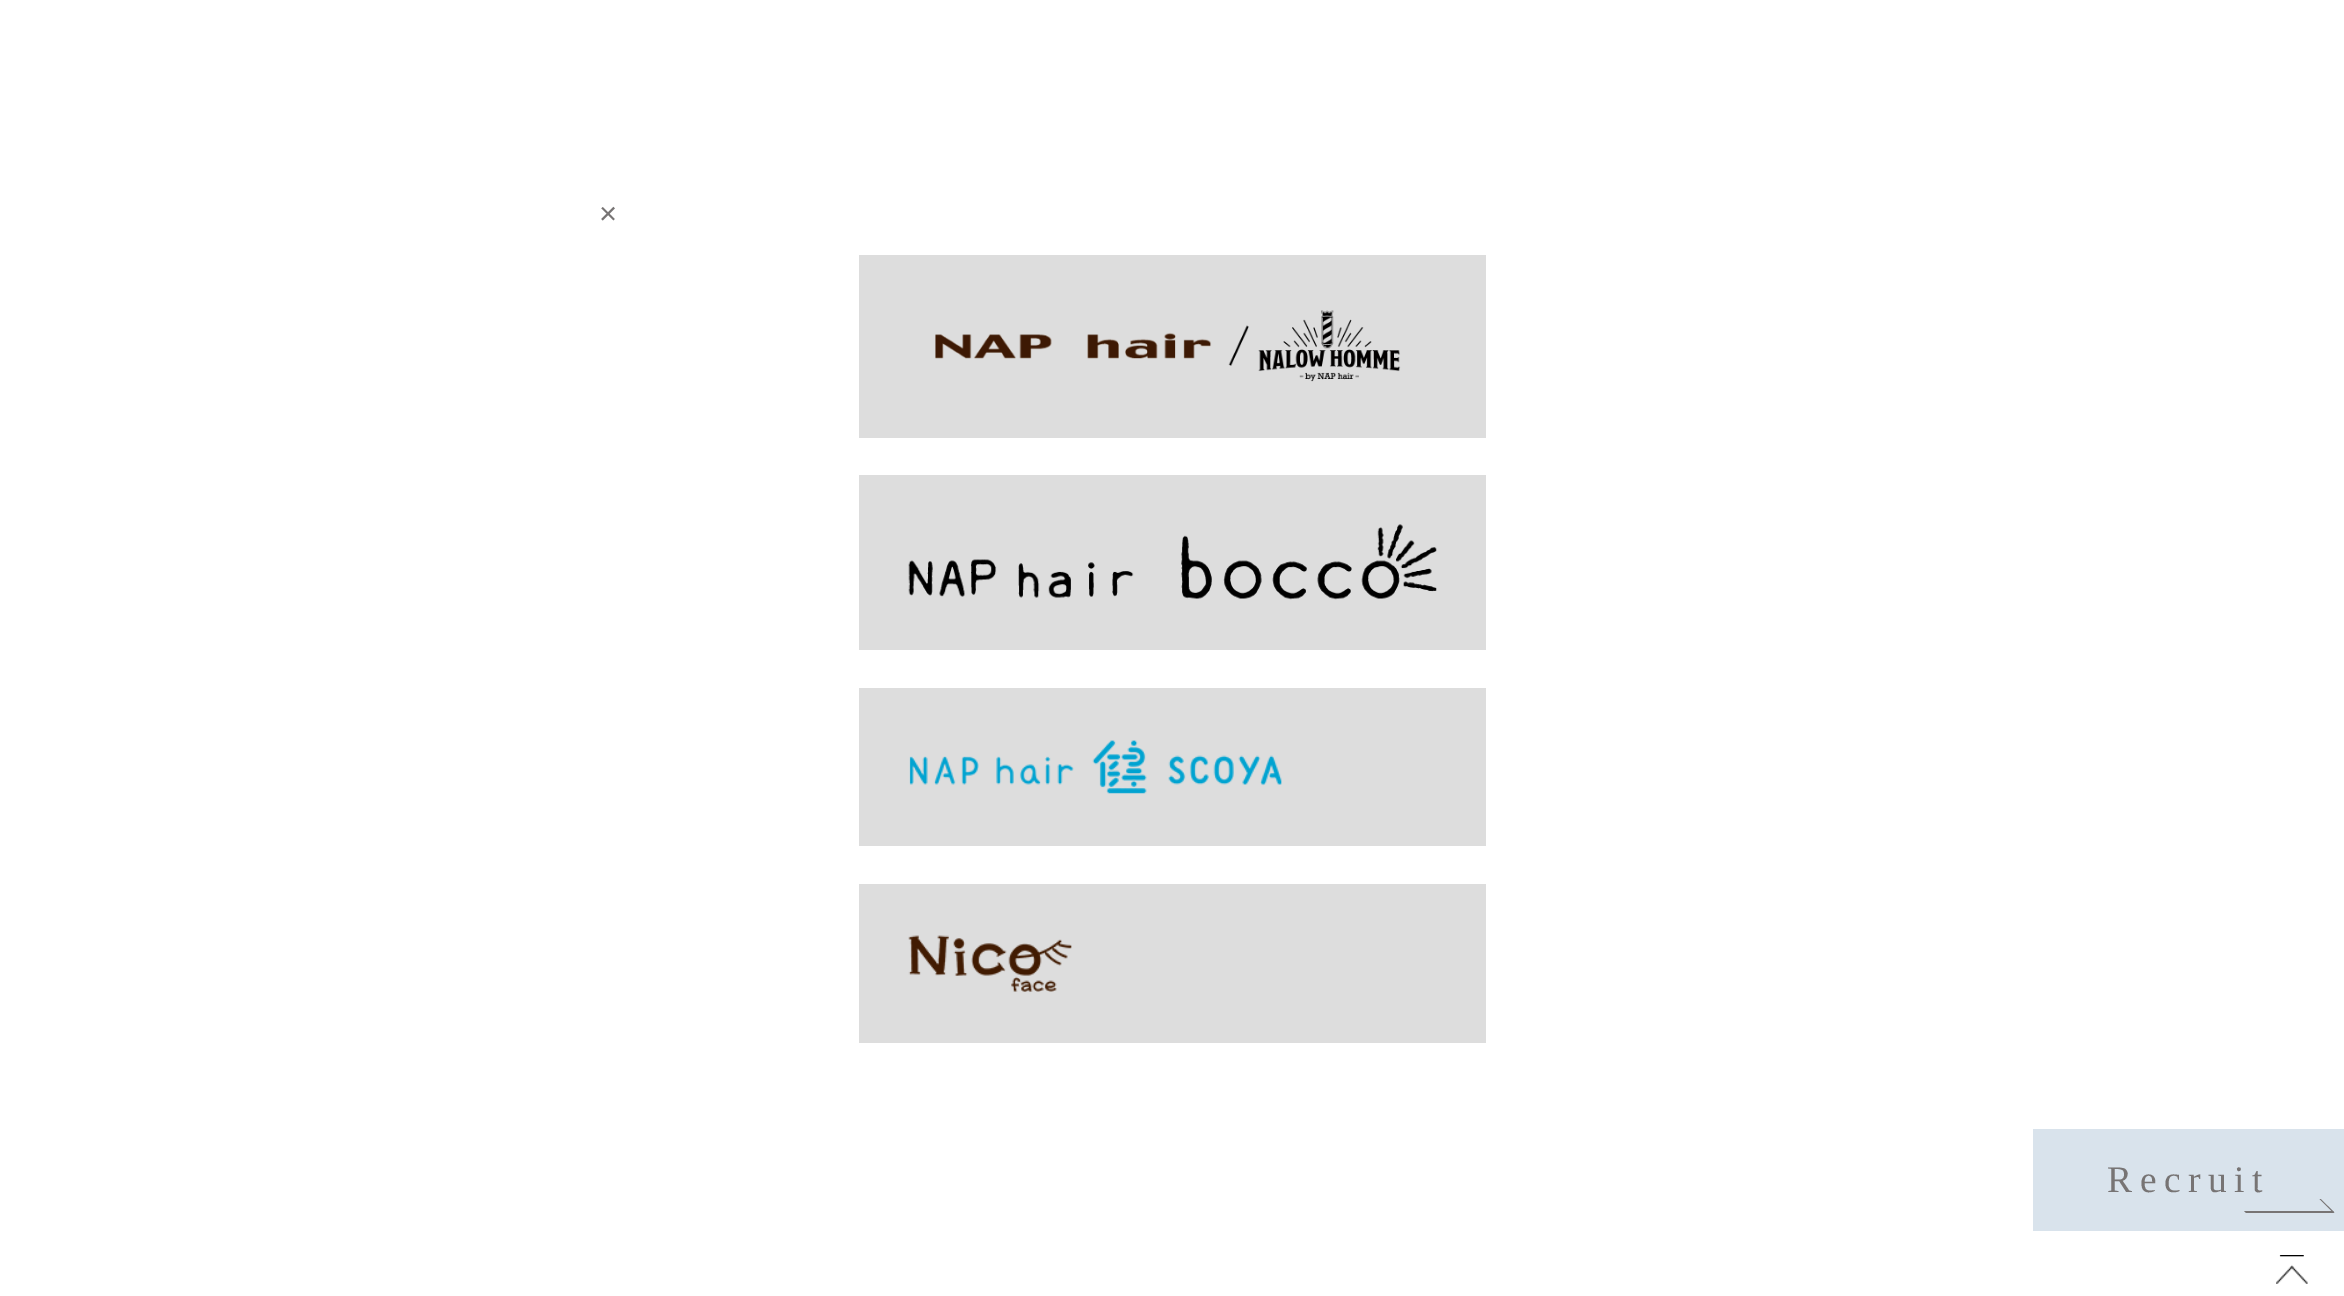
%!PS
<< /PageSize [2344 1296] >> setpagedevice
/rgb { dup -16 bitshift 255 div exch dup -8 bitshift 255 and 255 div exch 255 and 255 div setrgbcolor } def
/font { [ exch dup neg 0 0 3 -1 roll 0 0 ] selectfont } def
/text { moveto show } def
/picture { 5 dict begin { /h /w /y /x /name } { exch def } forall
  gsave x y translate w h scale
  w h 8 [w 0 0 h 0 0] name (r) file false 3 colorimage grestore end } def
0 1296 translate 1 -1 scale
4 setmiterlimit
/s1 { /LiberationSans-Regular 31 font 16#777474 rgb } def
16#FFFFFF rgb
0 0 2344 1296 rectfill
s1
(×) 599 224 text
16#DDDDDD rgb
859 255 627 183 rectfill
(pic1.raw) 935 310 466 72 picture
859 475 627 175 rectfill
(pic2.raw) 908 524 529 76 picture
859 688 627 158 rectfill
(pic3.raw) 909 740 373 54 picture
859 884 627 159 rectfill
(pic4.raw) 908 935 164 57 picture
16#D9E3EC rgb
2033 1129 311 102 rectfill
/LiberationSerif-Regular 37.5 font
16#777474 rgb
2107 1192 moveto 7.5 0 (Recruit) ashow
2319.5 1199 moveto 2320.5 1199 lineto 2334.5 1212.5 lineto 2333 1212.5 lineto closepath fill
2244 1211 moveto 2333 1211 lineto 2334 1213 lineto 2246 1213 lineto closepath fill
(pic5.raw) 2276 1255 32 29 picture
showpage
